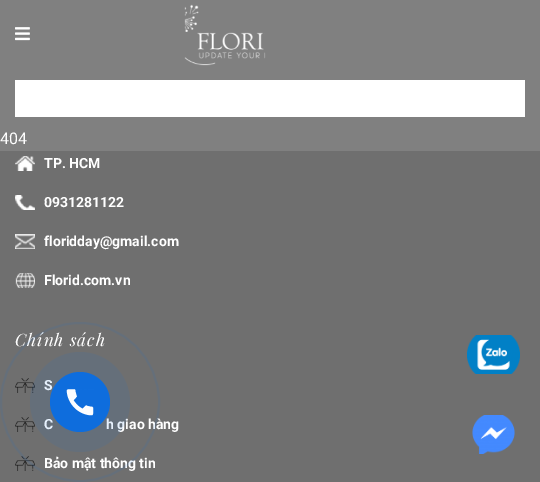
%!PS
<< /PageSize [540 482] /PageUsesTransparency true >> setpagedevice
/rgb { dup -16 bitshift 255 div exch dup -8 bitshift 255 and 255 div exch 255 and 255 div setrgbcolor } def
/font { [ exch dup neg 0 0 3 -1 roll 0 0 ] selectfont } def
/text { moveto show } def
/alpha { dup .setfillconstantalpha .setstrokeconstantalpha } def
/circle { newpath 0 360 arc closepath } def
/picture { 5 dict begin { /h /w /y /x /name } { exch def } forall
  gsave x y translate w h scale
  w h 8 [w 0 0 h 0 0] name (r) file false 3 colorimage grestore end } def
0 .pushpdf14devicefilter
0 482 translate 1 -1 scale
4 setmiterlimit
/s1 { /Roboto-Regular 16 font 16#FFFFFF rgb } def
/s2 { /Roboto-Bold 14 font 16#FFFFFF rgb } def
16#808080 rgb
0 0 540 482 rectfill
(pic1.raw) 15 27 15 14 picture
(pic2.raw) 184 4 82 62 picture
16#FFFFFF rgb
15 80 510 37 rectfill
s1
(404) 0 144 text
16#6F6F6F rgb
0 151 540 331 rectfill
(pic3.raw) 15 156 20 15 picture
s2
(TP. HCM) 44 168 text
(pic4.raw) 15 195 20 15 picture
(0931281122) 44 207 text
(pic5.raw) 15 234 20 15 picture
(floridday@gmail.com) 44 246 text
(pic6.raw) 15 273 20 15 picture
(Florid.com.vn) 44 285 text
/PlayfairDisplay-Italic 17 font
15 346 moveto 1 0 (Chính sách) ashow
(pic7.raw) 15 378 20 15 picture
s2
(S) 44 390 text
(pic7.raw) 15 417 20 15 picture
(C) 44 429 text
(h giao hàng) 106 429 text
(pic7.raw) 15 456 20 15 picture
(Bảo mật thông tin) 44 468 text
0.1 alpha
16#0D6DDE rgb
2 setlinewidth
80 402 79 circle stroke
80 402 50 circle fill
0.99 alpha
80 402 30 circle fill
1 alpha
(pic8.raw) 66 389 28 27 picture
(pic9.raw) 467 335 53 39 picture
(pic10.raw) 472 415 43 39 picture
.poppdf14devicefilter showpage
